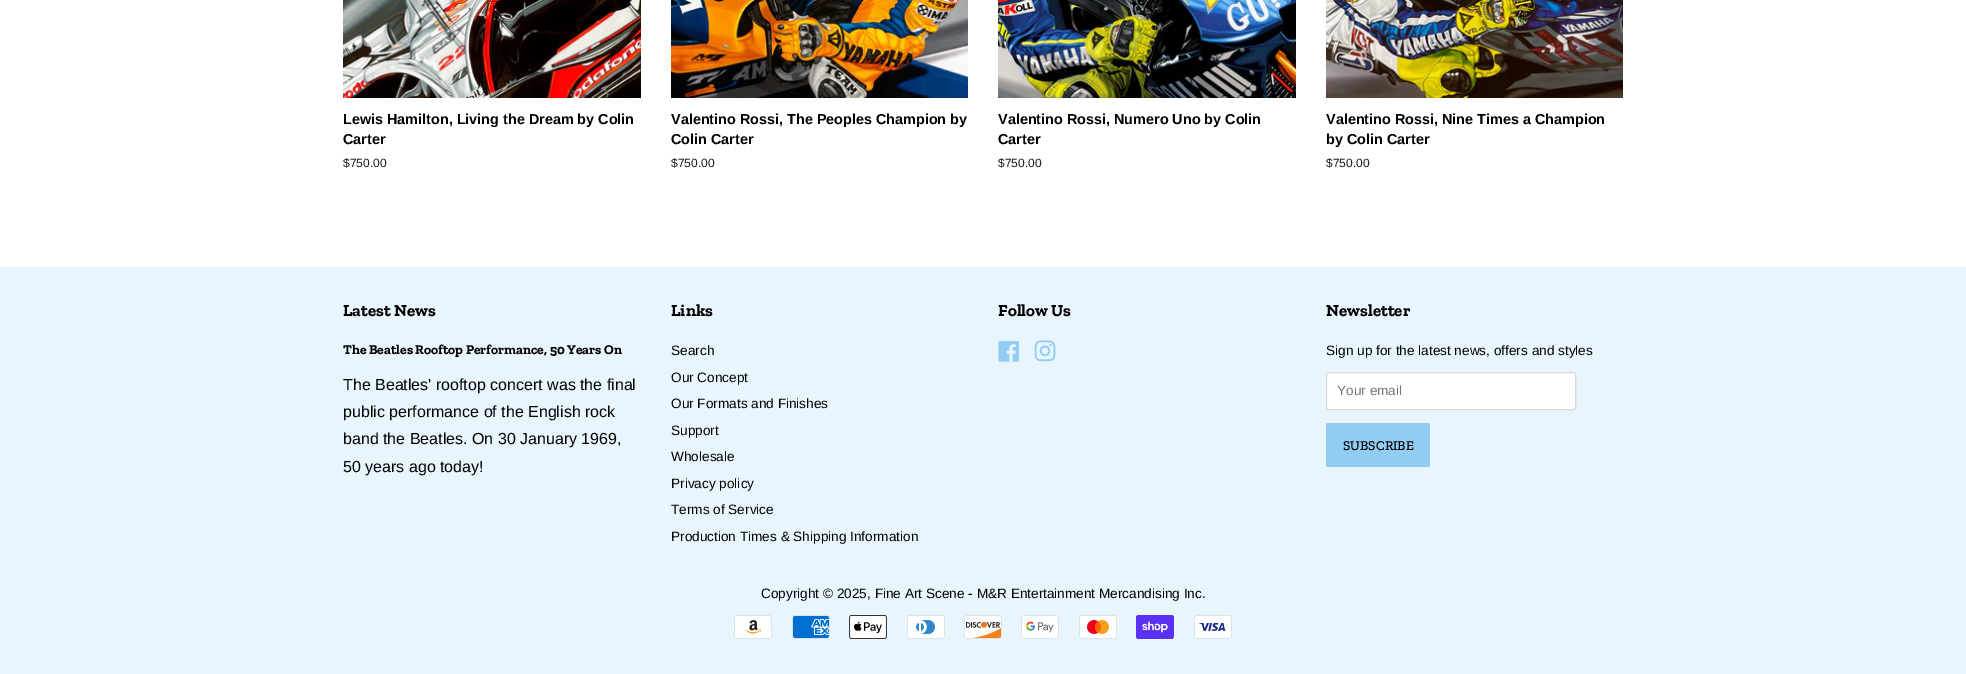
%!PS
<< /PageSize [1966 674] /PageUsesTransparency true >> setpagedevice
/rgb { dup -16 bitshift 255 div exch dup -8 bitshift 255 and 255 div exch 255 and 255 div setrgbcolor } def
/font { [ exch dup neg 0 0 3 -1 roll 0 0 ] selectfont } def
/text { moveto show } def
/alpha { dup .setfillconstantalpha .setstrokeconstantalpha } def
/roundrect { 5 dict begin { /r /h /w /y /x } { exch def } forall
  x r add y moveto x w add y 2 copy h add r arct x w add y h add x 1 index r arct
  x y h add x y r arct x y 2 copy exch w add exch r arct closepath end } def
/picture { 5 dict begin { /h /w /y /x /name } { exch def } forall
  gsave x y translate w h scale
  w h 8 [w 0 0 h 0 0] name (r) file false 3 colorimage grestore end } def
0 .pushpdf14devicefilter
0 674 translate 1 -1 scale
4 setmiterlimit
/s1 { /LiberationSans-Bold 14.4 font 16#000000 rgb } def
/s2 { /LiberationSans-Regular 12 font 16#1A1A1A rgb } def
/s3 { /ZillaSlab-Bold 17 font 16#000000 rgb } def
/s4 { /ZillaSlab-Bold 13.6 font 16#000000 rgb } def
/s5 { /LiberationSans-Regular 16 font 16#000000 rgb } def
/s6 { /LiberationSans-Regular 13.6 font 16#000000 rgb } def
/s7 { /LiberationSans-Regular 13.6 font 16#757575 rgb } def
/s8 { /ZillaSlab-Medium 13.6 font 16#000000 rgb } def
16#FFFFFF rgb
0 0 1966 674 rectfill
(pic1.raw) 343 0 298 98 picture
s1
(Lewis Hamilton, Living the Dream by Colin) 343 124 text
(Carter) 343 144 text
s2
($750.00) 343 167 text
(pic2.raw) 671 0 297 98 picture
s1
(Valentino Rossi, The Peoples Champion by) 671 124 text
(Colin Carter) 671 144 text
s2
($750.00) 671 167 text
(pic3.raw) 998 0 298 98 picture
s1
(Valentino Rossi, Numero Uno by Colin) 998 124 text
(Carter) 998 144 text
s2
($750.00) 998 167 text
(pic4.raw) 1326 0 297 98 picture
s1
(Valentino Rossi, Nine Times a Champion) 1326 124 text
(by Colin Carter) 1326 144 text
s2
($750.00) 1326 167 text
16#E9F5FC rgb
0 267 1966 407 rectfill
s3
(Latest News) 343 316 text
s4
(The Beatles Rooftop Performance, 50 Years On) 343 354 text
s5
(The Beatles' rooftop concert was the final) 343 390 text
(public performance of the English rock) 343 417 text
(band the Beatles. On 30 January 1969,) 343 444 text
(50 years ago today!) 343 472 text
s3
(Links) 671 316 text
s6
(Search) 671 355 text
(Our Concept) 671 382 text
(Our Formats and Finishes) 671 408 text
(Support) 671 435 text
(Wholesale) 671 461 text
(Privacy policy) 671 488 text
(Terms of Service) 671 514 text
(Production Times & Shipping Information) 671 541 text
s3
(Follow Us) 998 316 text
(pic5.raw) 998 341 21 21 picture
(pic6.raw) 1034 340 22 22 picture
(Newsletter) 1326 316 text
s6
(Sign up for the latest news, offers and styles) 1326 355 text
16#FFFFFF rgb
1326 372 250 38 2 roundrect fill
0.15 alpha
16#000000 rgb
1326.5 372.5 249 37 1.5 roundrect stroke
1 alpha
s7
(Your email) 1337 395 text
16#92CCF2 rgb
1326 423 104 44 2 roundrect fill
s8
(SUBSCRIBE) 1343 450 text
s6
(Copyright © 2025, Fine Art Scene - M&R Entertainment Mercandising Inc.) 761 598 text
(pic7.raw) 734 615 38 24 picture
(pic8.raw) 792 615 38 24 picture
(pic9.raw) 849 615 38 24 picture
(pic10.raw) 907 615 38 24 picture
(pic11.raw) 964 615 38 24 picture
(pic12.raw) 1021 615 38 24 picture
(pic13.raw) 1079 615 38 24 picture
(pic14.raw) 1136 615 38 24 picture
(pic15.raw) 1194 615 38 24 picture
.poppdf14devicefilter showpage
